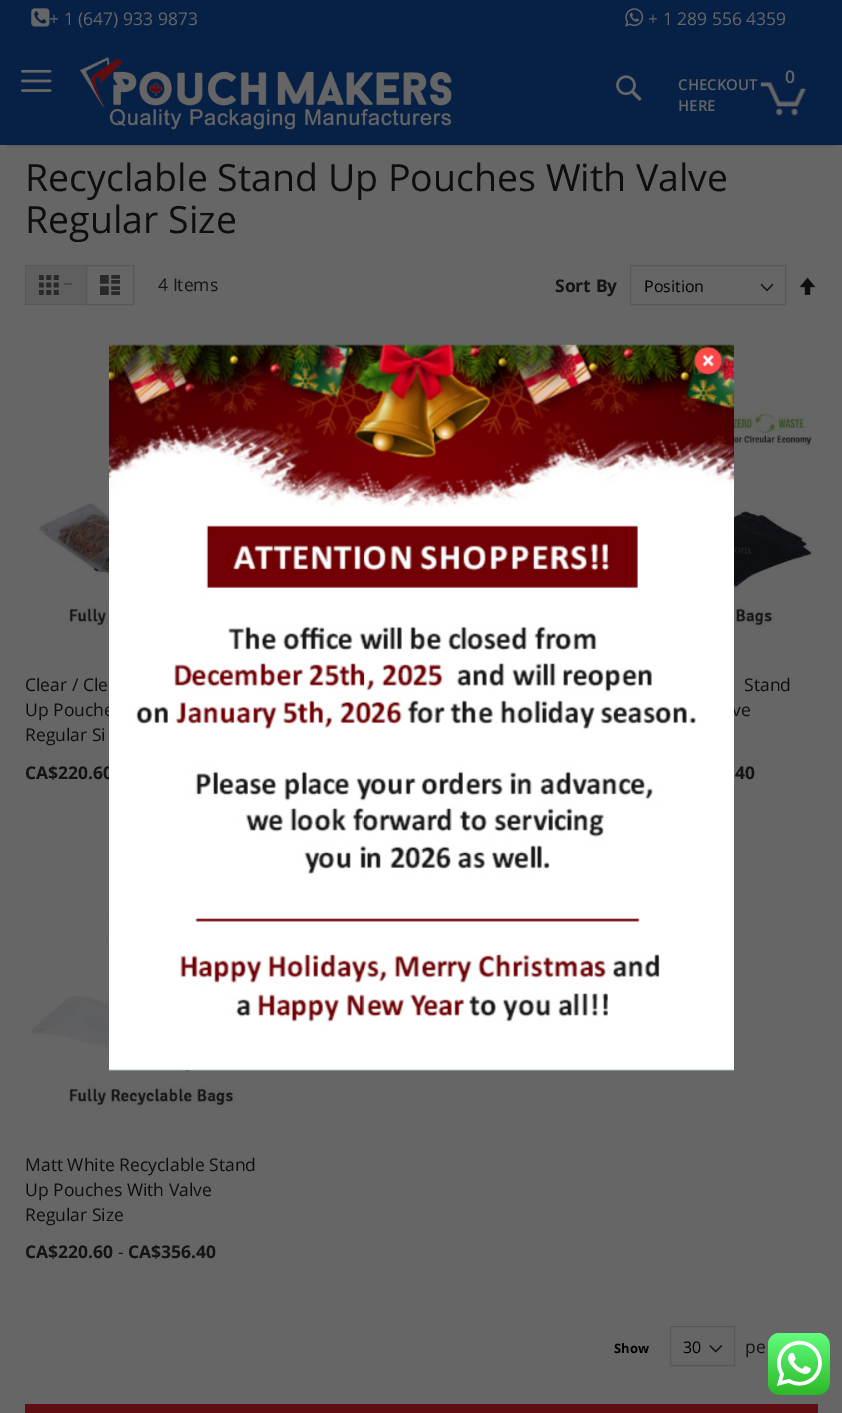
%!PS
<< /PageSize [842 1413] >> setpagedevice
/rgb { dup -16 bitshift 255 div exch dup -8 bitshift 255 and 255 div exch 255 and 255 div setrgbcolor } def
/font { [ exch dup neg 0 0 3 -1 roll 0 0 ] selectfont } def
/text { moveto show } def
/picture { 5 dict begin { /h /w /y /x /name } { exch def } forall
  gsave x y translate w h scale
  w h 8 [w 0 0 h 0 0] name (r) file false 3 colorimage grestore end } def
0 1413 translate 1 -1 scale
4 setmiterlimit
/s1 { /OpenSans-Regular 17.5 font 16#666666 rgb } def
/s2 { /OpenSans-SemiBold 17.5 font 16#666666 rgb } def
/s3 { /OpenSans-SemiBold 15 font 16#666666 rgb } def
/s4 { /OpenSans-Regular 37.5 font 16#0E0E0E rgb } def
/s5 { /OpenSans-Regular 17.5 font 16#3F3F3F rgb } def
/s6 { /OpenSans-Regular 17.5 font 16#141414 rgb } def
/s7 { /OpenSans-Bold 17.5 font 16#141414 rgb } def
/s8 { /OpenSans-Regular 16 font 16#000000 rgb } def
/s9 { /OpenSans-Regular 17.5 font 16#0E0E0E rgb } def
/s10 { /OpenSans-Bold 13 font 16#000000 rgb } def
16#666666 rgb
0 0 842 1413 rectfill
16#072146 rgb
0 0 842 145 rectfill
(pic1.raw) 31 8 19 19 picture
s1
(+ 1 \(647\) 933 9873) 49 25 text
(pic2.raw) 625 8 19 19 picture
(+ 1 289 556 4359) 648 25 text
(pic3.raw) 21 69 31 23 picture
(pic4.raw) 80 57 372 73 picture
s2
(0) 785 83 text
s3
(CHECKOUT) 678 90 text
(HERE) 678 111 text
(pic5.raw) 760 82 46 34 picture
(pic6.raw) 616 75 26 26 picture
16#585858 rgb
6 145 830 1 rectfill
s4
(Recyclable Stand Up Pouches With Valve) 25 191 text
(Regular Size) 25 233 text
16#5F5F5F rgb
26 266 60 38 rectfill
16#585858 rgb
25 265 61 1 rectfill
25 304 61 1 rectfill
25 265 1 40 rectfill
(pic7.raw) 39 275 20 20 picture
s5
(−) 63 290 text
16#585858 rgb
86.5 265.5 47 39 rectstroke
(pic8.raw) 100 275 20 20 picture
s6
(4 Items) 158 291 text
s7
(Sort By) 555 292 text
(pic9.raw) 760 283 14 9 picture
16#585858 rgb
630.5 265.5 155 39 rectstroke
s8
(Position) 644 292 text
(pic10.raw) 799 277 17 18 picture
(pic11.raw) 38 402 71 226 picture
s9
(Clear / Cle) 25 691 text
(Up Pouche) 25 716 text
(Regular Si) 25 741 text
s7
(CA$220.60) 25 779 text
(pic12.raw) 734 402 80 226 picture
s9
(Stand) 744 691 text
(ve) 732 716 text
s7
(40) 735 779 text
(pic13.raw) 30 881 245 227 picture
s9
(Matt White Recyclable Stand) 25 1171 text
(Up Pouches With Valve) 25 1196 text
(Regular Size) 25 1221 text
s7
(CA$220.60) 25 1258 text
s6
(-) 118 1258 text
s7
(CA$356.40) 128 1258 text
s10
(Show) 614 1353 text
(pic14.raw) 709 1344 14 9 picture
16#585858 rgb
670.5 1326.5 64 39 rectstroke
s8
(30) 683 1353 text
s6
(pe) 745 1353 text
16#5E0D10 rgb
25 1404 793 9 rectfill
(pic15.raw) 768 1333 62 62 picture
(pic16.raw) 109 344 625 727 picture
(pic17.raw) 694 346 29 29 picture
showpage
